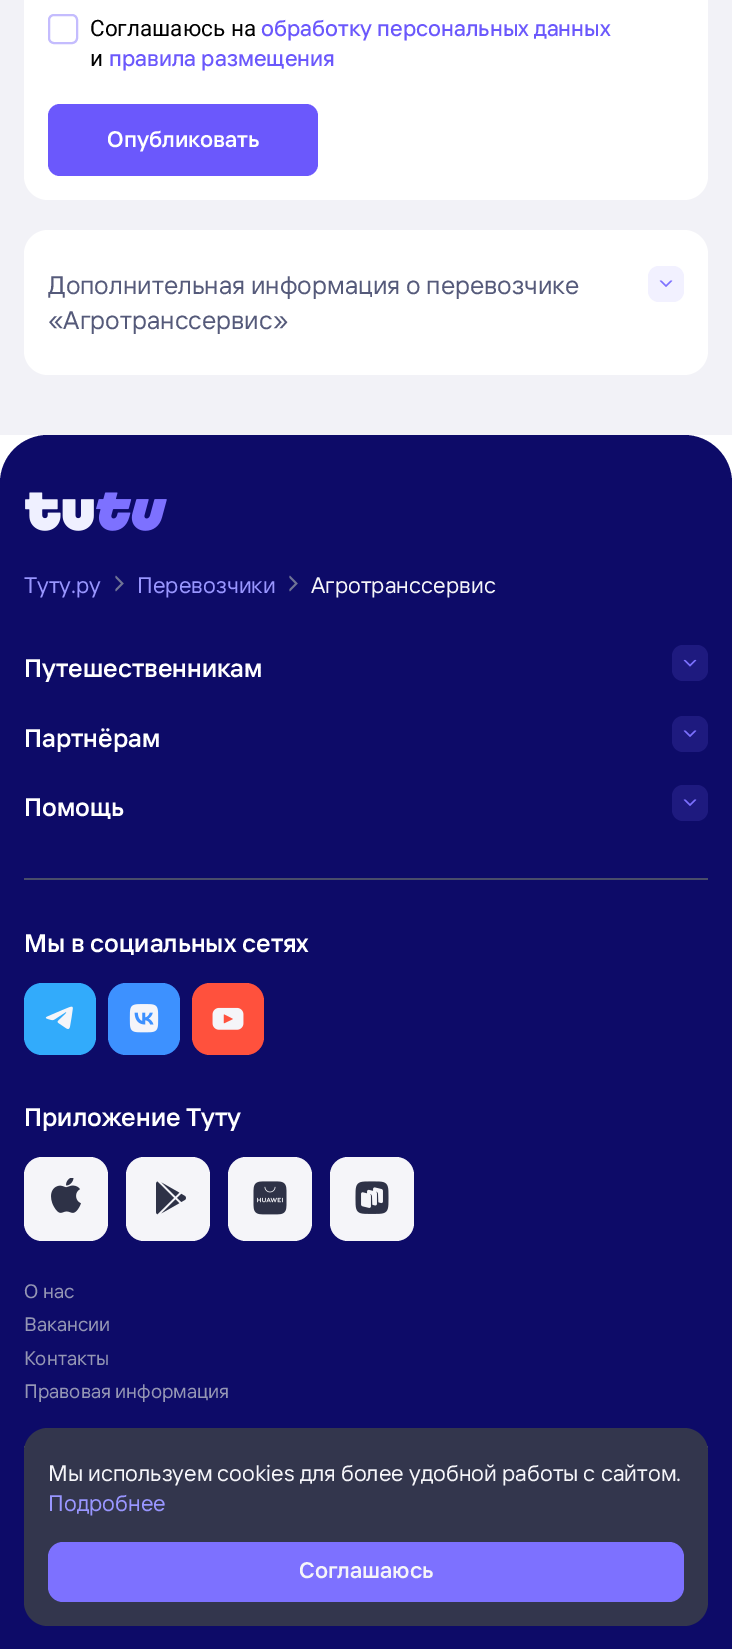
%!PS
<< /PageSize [732 1649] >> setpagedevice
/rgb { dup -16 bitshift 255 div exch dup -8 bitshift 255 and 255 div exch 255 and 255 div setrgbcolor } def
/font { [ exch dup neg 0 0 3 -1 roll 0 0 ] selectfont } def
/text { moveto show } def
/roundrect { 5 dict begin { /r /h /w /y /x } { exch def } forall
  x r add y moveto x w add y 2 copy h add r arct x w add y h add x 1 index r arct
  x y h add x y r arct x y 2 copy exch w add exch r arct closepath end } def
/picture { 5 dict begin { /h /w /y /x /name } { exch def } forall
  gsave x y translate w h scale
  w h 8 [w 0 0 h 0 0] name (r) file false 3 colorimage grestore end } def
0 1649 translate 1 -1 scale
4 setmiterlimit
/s1 { /Roboto-Regular 22.5 font 16#000000 rgb } def
/s2 { /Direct-Medium 22.5 font 16#6B58FC rgb } def
/s3 { /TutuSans-SemiBold 22.5 font 16#FFFFFF rgb } def
/s4 { /TutuSans-Regular 25.5 font 16#555A7A rgb } def
/s5 { /TutuSans-Regular 22.5 font 16#9996FF rgb } def
/s6 { /TutuSans-Regular 22.5 font 16#F5F5F9 rgb } def
/s7 { /TutuSans-SemiBold 25.5 font 16#FFFFFF rgb } def
/s8 { /TutuSans-Regular 19.5 font 16#9496B4 rgb } def
/s9 { /TutuSans-SemiBold 22.5 font 16#F5F5F9 rgb } def
16#FFFFFF rgb
0 0 732 1649 rectfill
16#F2F2F7 rgb
0 0 732 435 rectfill
16#FFFFFF rgb
24 -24 684 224 24 roundrect fill
16#C4BCFE rgb
2 setlinewidth
49 15 28 28 5 roundrect stroke
s1
(Соглашаюсь на) 90 36 text
s2
(обработку персональных данных) 261 36 text
s1
(и) 90 66 text
s2
(правила размещения) 109 66 text
48 104 270 72 12 roundrect fill
s3
(Опубликовать) 107 147 text
24 230 684 145 24 roundrect fill
s4
(Дополнительная информация о перевозчике) 48 294 text
(«Агротранссервис») 48 329 text
16#F2F1FF rgb
648 266 36 36 11 roundrect fill
(pic1.raw) 659 280 14 7 picture
16#0D0B68 rgb
48 435 moveto 684 435 lineto 710.5 435 732 456.5 732 483 curveto 732 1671 lineto 0 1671 lineto 0 483 lineto 0 456.5 21.5 435 48 435 curveto closepath fill
(pic2.raw) 25 492 142 39 picture
s5
(Туту.ру) 24 593 text
(pic3.raw) 115 575 9 17 picture
(Перевозчики) 137 593 text
(pic3.raw) 289 575 9 17 picture
s6
(Агротранссервис) 311 593 text
s7
(Путешественникам) 24 677 text
16#1E1A7F rgb
672 645 36 36 11 roundrect fill
(pic4.raw) 683 659 14 8 picture
s7
(Партнёрам) 24 747 text
16#1E1A7F rgb
672 716 36 36 11 roundrect fill
(pic5.raw) 683 730 14 7 picture
s7
(Помощь) 24 816 text
16#1E1A7F rgb
672 785 36 36 11 roundrect fill
(pic5.raw) 683 799 14 7 picture
16#494D6A rgb
24 878 684 2 rectfill
s7
(Мы в социальных сетях) 24 952 text
16#32ABFB rgb
24 983 72 72 18 roundrect fill
(pic6.raw) 45 1006 28 23 picture
16#3D91FF rgb
108 983 72 72 18 roundrect fill
(pic7.raw) 129 1004 30 29 picture
16#FF513D rgb
192 983 72 72 18 roundrect fill
(pic8.raw) 212 1007 32 23 picture
s7
(Приложение Туту) 24 1126 text
16#F5F5F9 rgb
24 1157 84 84 18 roundrect fill
(pic9.raw) 51 1178 30 35 picture
126 1157 84 84 18 roundrect fill
(pic10.raw) 156 1181 30 34 picture
228 1157 84 84 18 roundrect fill
(pic11.raw) 253 1181 34 34 picture
330 1157 84 84 18 roundrect fill
(pic12.raw) 355 1181 34 33 picture
s8
(О нас) 24 1298 text
(Вакансии) 24 1331 text
(Контакты) 24 1365 text
(Правовая информация) 24 1398 text
16#494D6A rgb
24 1446 684 2 rectfill
16#33364D rgb
24 1428 684 198 24 roundrect fill
s6
(Мы используем cookies для более удобной работы с сайтом.) 48 1481 text
s5
(Подробнее) 48 1511 text
16#7D71FF rgb
48 1542 636 60 15 roundrect fill
s9
(Соглашаюсь) 299 1578 text
showpage
